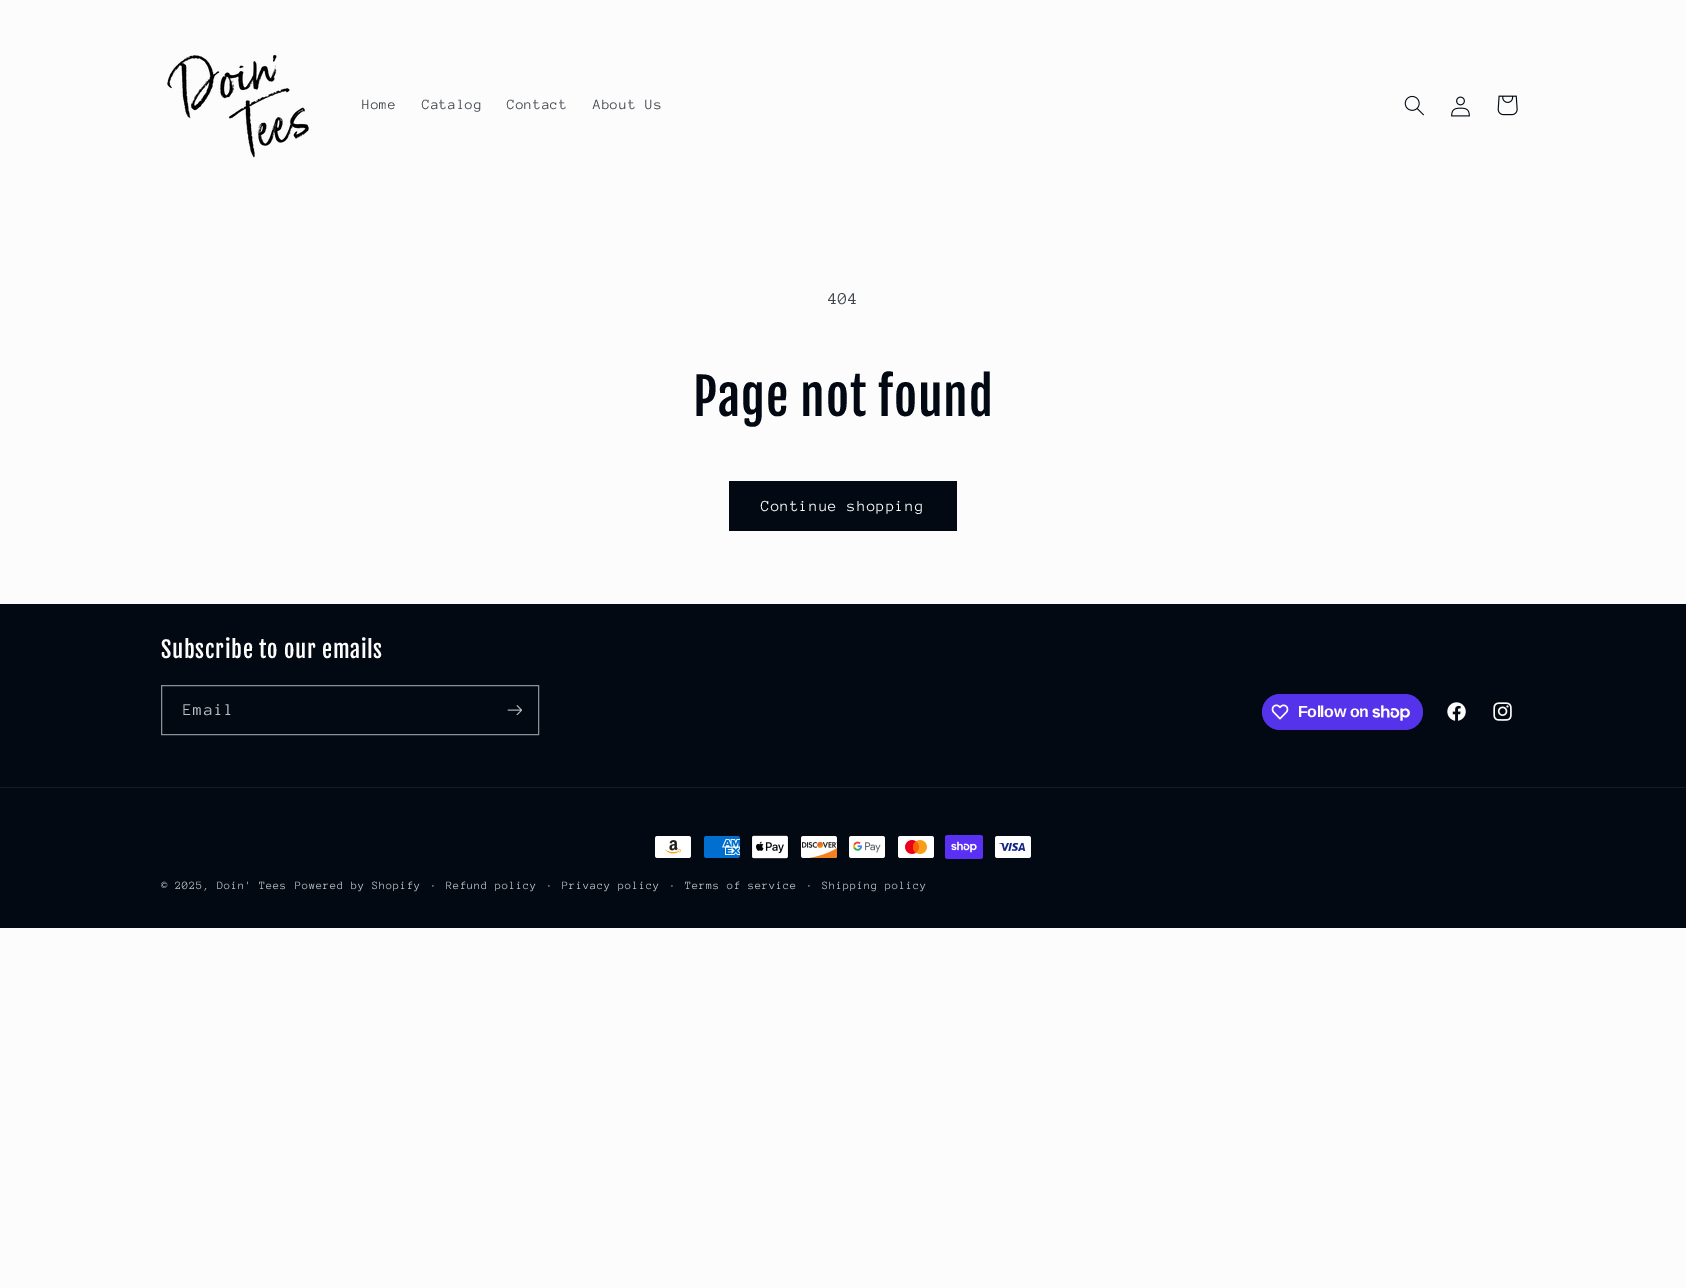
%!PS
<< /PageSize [1686 1288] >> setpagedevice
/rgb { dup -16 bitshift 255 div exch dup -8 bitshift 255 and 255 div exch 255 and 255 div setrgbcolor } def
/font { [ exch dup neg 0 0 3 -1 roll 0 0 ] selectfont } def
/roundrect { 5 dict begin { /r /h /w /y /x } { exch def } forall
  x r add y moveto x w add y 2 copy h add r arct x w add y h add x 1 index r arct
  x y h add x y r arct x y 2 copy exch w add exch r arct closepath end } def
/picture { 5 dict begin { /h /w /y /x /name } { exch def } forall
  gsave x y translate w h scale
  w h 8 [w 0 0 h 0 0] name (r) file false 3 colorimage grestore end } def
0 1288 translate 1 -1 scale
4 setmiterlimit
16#FCFCFC rgb
0 0 1686 1288 rectfill
(pic1.raw) 167 54 142 104 picture
/AnonymousPro-Regular 14.5 font
16#41464D rgb
362 109 moveto 0.75 0 (Home) ashow
422 109 moveto 0.75 0 (Catalog) ashow
507 109 moveto 0.75 0 (Contact) ashow
593 109 moveto 0.75 0 (About Us) ashow
(pic2.raw) 1404 95 20 21 picture
(pic3.raw) 1451 96 19 21 picture
(pic4.raw) 1497 95 21 21 picture
/AnonymousPro-Regular 17 font
828 304 moveto 0.75 0 (404) ashow
/FjallaOne-Regular 50 font
16#020912 rgb
693 416 moveto 0.75 0 (Page not found) ashow
729 481 228 50 rectfill
/AnonymousPro-Regular 15.75 font
16#FCFCFC rgb
761 511 moveto 1 0 (Continue shopping) ashow
16#020912 rgb
0 604 1686 324 rectfill
/FjallaOne-Regular 22.5 font
16#FCFCFC rgb
161 658 moveto 0.75 0 (Subscribe to our emails) ashow
16#8C8F93 rgb
161.5 685.5 377 49 rectstroke
/AnonymousPro-Regular 17 font
16#BEBFC2 rgb
183 715 moveto 1 0 (Email) ashow
(pic5.raw) 507 705 15 11 picture
16#5433EB rgb
1262 694 161 36 18 roundrect fill
(pic6.raw) 1271 704 18 16 picture
/LiberationSans-Bold 16 font
16#FCFCFC rgb
1298 717 moveto -0.5 0 (Follow on) ashow
(pic7.raw) 1372 705 38 16 picture
(pic8.raw) 1447 702 19 19 picture
(pic9.raw) 1493 702 19 19 picture
16#161C25 rgb
0 787 1686 1 rectfill
(pic10.raw) 655 836 36 22 picture
(pic11.raw) 704 836 36 22 picture
(pic12.raw) 751 835 38 24 picture
(pic13.raw) 801 836 37 22 picture
(pic14.raw) 849 836 36 22 picture
(pic15.raw) 898 836 36 22 picture
(pic16.raw) 945 835 38 24 picture
(pic17.raw) 995 836 36 22 picture
/AnonymousPro-Regular 11.5 font
16#BEBFC2 rgb
161 889 moveto 0.75 0 (© 2025, Doin' Tees) ashow
295 889 moveto 0.75 0 (Powered by Shopify) ashow
/AnonymousPro-Regular 13 font
430 889 moveto 0.75 0 (·) ashow
/AnonymousPro-Regular 11.5 font
446 889 moveto 0.75 0 (Refund policy) ashow
/AnonymousPro-Regular 13 font
546 889 moveto 0.75 0 (·) ashow
/AnonymousPro-Regular 11.5 font
562 889 moveto 0.75 0 (Privacy policy) ashow
/AnonymousPro-Regular 13 font
669 889 moveto 0.75 0 (·) ashow
/AnonymousPro-Regular 11.5 font
685 889 moveto 0.75 0 (Terms of service) ashow
/AnonymousPro-Regular 13 font
806 889 moveto 0.75 0 (·) ashow
/AnonymousPro-Regular 11.5 font
822 889 moveto 0.75 0 (Shipping policy) ashow
showpage
